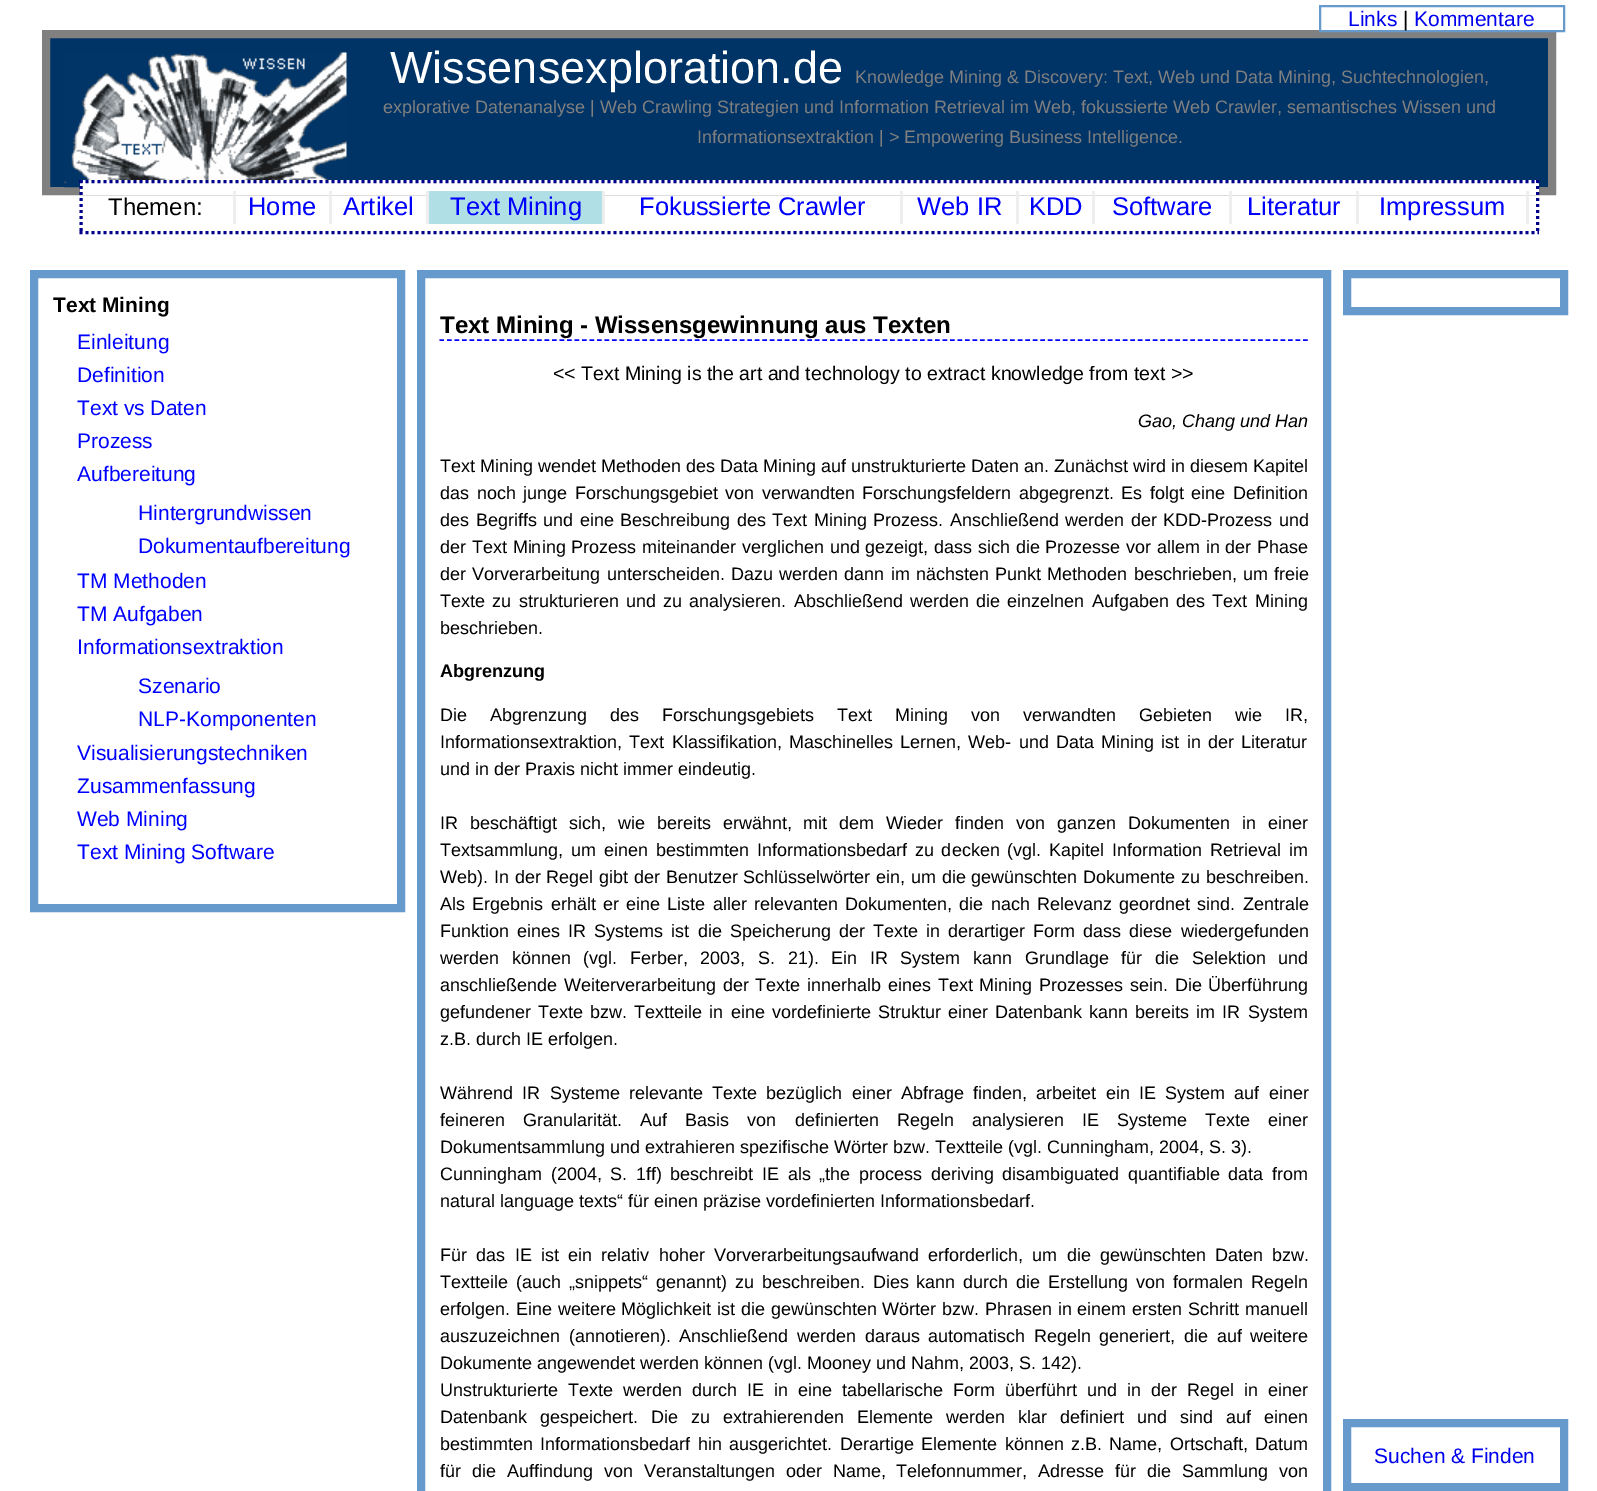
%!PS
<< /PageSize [1597 1491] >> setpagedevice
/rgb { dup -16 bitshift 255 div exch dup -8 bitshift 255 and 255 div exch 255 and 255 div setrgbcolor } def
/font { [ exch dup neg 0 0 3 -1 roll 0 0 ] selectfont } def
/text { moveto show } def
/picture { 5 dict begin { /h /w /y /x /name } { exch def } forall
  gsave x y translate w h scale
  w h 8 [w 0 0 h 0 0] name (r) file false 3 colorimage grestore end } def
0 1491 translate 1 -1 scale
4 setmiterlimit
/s1 { /LiberationSans-Regular 21 font 16#0000EE rgb } def
/s2 { /LiberationSans-Regular 21 font 16#000000 rgb } def
/s3 { /LiberationSans-Regular 45 font 16#FFFFFF rgb } def
/s4 { /LiberationSans-Regular 18 font 16#808080 rgb } def
/s5 { /LiberationSans-Regular 24 font 16#000000 rgb } def
/s6 { /LiberationSans-Regular 25.5 font 16#0000FF rgb } def
/s7 { /LiberationSans-Bold 21 font 16#000000 rgb } def
/s8 { /LiberationSans-Regular 21 font 16#0000FF rgb } def
/s9 { /LiberationSans-Bold 24 font 16#000000 rgb } def
/s10 { /LiberationSans-Regular 19.5 font 16#000000 rgb } def
/s11 { /LiberationSans-Italic 18 font 16#000000 rgb } def
/s12 { /LiberationSans-Regular 18 font 16#000000 rgb } def
/s13 { /LiberationSans-Bold 18 font 16#000000 rgb } def
16#FFFFFF rgb
0 0 1597 1491 rectfill
16#003366 rgb
46 34 moveto 1552 34 lineto 1552 191 lineto 46 191 lineto closepath gsave fill grestore
16#808080 rgb
8 setlinewidth
stroke
16#6699CC rgb
2 setlinewidth
1320 6 244 25 rectstroke
s1
(Links) 1348 26 text
s2
(|) 1403 26 text
s1
(Kommentare) 1414 26 text
(pic1.raw) 64 52 283 136 picture
s3
(Wissensexploration.de) 390 83 text
s4
(Knowledge Mining & Discovery: Text, Web und Data Mining, Suchtechnologien,) 855 83 text
(explorative Datenanalyse | Web Crawling Strategien und Information Retrieval im Web, fokussierte Web Crawler, semantisches Wissen und) 383 113 text
(Informationsextraktion | > Empowering Business Intelligence.) 697 143 text
16#FFFFFF rgb
80 180 1459 15 rectfill
16#00008B rgb
3 setlinewidth
[3 3] 0 setdash
79.5 181.5 moveto 1539 181.5 lineto stroke
1537.5 180 moveto 1537.5 234 lineto stroke
79.5 232.5 moveto 1539 232.5 lineto stroke
81 180 moveto 81 234 lineto stroke
16#EEEEEE rgb
233 191 3 33 rectfill
s5
(Themen:) 108 215 text
16#EEEEEE rgb
329 191 3 33 rectfill
s6
(Home) 248 215 text
16#EEEEEE rgb
426 191 3 33 rectfill
s6
(Artikel) 343 215 text
16#B0E0E6 rgb
429 191 173 33 rectfill
16#EEEEEE rgb
602 191 3 33 rectfill
s6
(Text Mining) 450 215 text
16#EEEEEE rgb
900 191 3 33 rectfill
s6
(Fokussierte Crawler) 639 215 text
16#EEEEEE rgb
1016 191 3 33 rectfill
s6
(Web IR) 917 215 text
16#EEEEEE rgb
1092 191 3 33 rectfill
s6
(KDD) 1029 215 text
16#EEEEEE rgb
1229 191 3 33 rectfill
s6
(Software) 1112 215 text
16#EEEEEE rgb
1356 191 3 33 rectfill
s6
(Literatur) 1247 215 text
16#EEEEEE rgb
1526 191 3 33 rectfill
s6
(Impressum) 1379 215 text
16#6699CC rgb
8 setlinewidth
[] 0 setdash
34 274 367 634 rectstroke
s7
(Text Mining) 53 312 text
s8
(Einleitung) 77 349 text
(Definition) 77 382 text
(Text vs Daten) 77 415 text
(Prozess) 77 448 text
(Aufbereitung) 77 481 text
(Hintergrundwissen) 138 520 text
(Dokumentaufbereitung) 138 553 text
(TM Methoden) 77 588 text
(TM Aufgaben) 77 621 text
(Informationsextraktion) 77 654 text
(Szenario) 138 693 text
(NLP-Komponenten) 138 726 text
(Visualisierungstechniken) 77 760 text
(Zusammenfassung) 77 793 text
(Web Mining) 77 826 text
(Text Mining Software) 77 859 text
16#6699CC rgb
421 274 906 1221 rectstroke
16#0000FF rgb
1.5 setlinewidth
[4.5 3.01] 0 setdash
439.5 340 moveto 1308 340 lineto stroke
s9
(Text Mining - Wissensgewinnung aus Texten) 440 333 text
s10
(<< Text Mining is the art and technology to extract knowledge from text >>) 553 380 text
s11
(Gao, Chang und Han) 1138 427 text
s12
(Text Mining wendet Methoden des Data Mining auf unstrukturierte Daten an. Zunächst wird in diesem Kapitel) 440 472 text
440 499 moveto 2.5 0 32 (das noch junge Forschungsgebiet von verwandten Forschungsfeldern abgegrenzt. Es folgt eine Definition) widthshow
440 526 moveto 1.5 0 32 (des Begriffs und eine Beschreibung des Text Mining Prozess. Anschließend werden der KDD-Prozess und) widthshow
440 553 moveto 0.75 0 32 (der Text Mining Prozess miteinander verglichen und gezeigt, dass sich die Prozesse vor allem in der Phase) widthshow
440 580 moveto 1.25 0 32 (der Vorverarbeitung unterscheiden. Dazu werden dann im nächsten Punkt Methoden beschrieben, um freie) widthshow
440 607 moveto 2.25 0 32 (Texte zu strukturieren und zu analysieren. Abschließend werden die einzelnen Aufgaben des Text Mining) widthshow
(beschrieben.) 440 634 text
s13
(Abgrenzung) 440 677 text
/LiberationSans-Regular 18 font
440 721 moveto 18 0 32 (Die Abgrenzung des Forschungsgebiets Text Mining von verwandten Gebieten wie IR,) widthshow
440 748 moveto 2.25 0 32 (Informationsextraktion, Text Klassifikation, Maschinelles Lernen, Web- und Data Mining ist in der Literatur) widthshow
(und in der Praxis nicht immer eindeutig.) 440 775 text
440 829 moveto 6.9 0 32 (IR beschäftigt sich, wie bereits erwähnt, mit dem Wieder finden von ganzen Dokumenten in einer) widthshow
440 856 moveto 2.9 0 32 (Textsammlung, um einen bestimmten Informationsbedarf zu decken \(vgl. Kapitel Information Retrieval im) widthshow
440 883 moveto 0.75 0 32 (Web\). In der Regel gibt der Benutzer Schlüsselwörter ein, um die gewünschten Dokumente zu beschreiben.) widthshow
440 910 moveto 2.25 0 32 (Als Ergebnis erhält er eine Liste aller relevanten Dokumenten, die nach Relevanz geordnet sind. Zentrale) widthshow
440 937 moveto 3.1 0 32 (Funktion eines IR Systems ist die Speicherung der Texte in derartiger Form dass diese wiedergefunden) widthshow
440 964 moveto 7.6 0 32 (werden können \(vgl. Ferber, 2003, S. 21\). Ein IR System kann Grundlage für die Selektion und) widthshow
440 991 moveto 1.75 0 32 (anschließende Weiterverarbeitung der Texte innerhalb eines Text Mining Prozesses sein. Die Überführung) widthshow
440 1018 moveto 2.1 0 32 (gefundener Texte bzw. Textteile in eine vordefinierte Struktur einer Datenbank kann bereits im IR System) widthshow
(z.B. durch IE erfolgen.) 440 1045 text
440 1099 moveto 4.25 0 32 (Während IR Systeme relevante Texte bezüglich einer Abfrage finden, arbeitet ein IE System auf einer) widthshow
440 1126 moveto 13.1 0 32 (feineren Granularität. Auf Basis von definierten Regeln analysieren IE Systeme Texte einer) widthshow
(Dokumentsammlung und extrahieren spezifische Wörter bzw. Textteile \(vgl. Cunningham, 2004, S. 3\).) 440 1153 text
440 1180 moveto 3.6 0 32 (Cunningham \(2004, S. 1ff\) beschreibt IE als „the process deriving disambiguated quantifiable data from) widthshow
(natural language texts“ für einen präzise vordefinierten Informationsbedarf.) 440 1207 text
440 1261 moveto 4.25 0 32 (Für das IE ist ein relativ hoher Vorverarbeitungsaufwand erforderlich, um die gewünschten Daten bzw.) widthshow
440 1288 moveto 2.9 0 32 (Textteile \(auch „snippets“ genannt\) zu beschreiben. Dies kann durch die Erstellung von formalen Regeln) widthshow
440 1315 moveto 0.75 0 32 (erfolgen. Eine weitere Möglichkeit ist die gewünschten Wörter bzw. Phrasen in einem ersten Schritt manuell) widthshow
440 1342 moveto 3.6 0 32 (auszuzeichnen \(annotieren\). Anschließend werden daraus automatisch Regeln generiert, die auf weitere) widthshow
(Dokumente angewendet werden können \(vgl. Mooney und Nahm, 2003, S. 142\).) 440 1369 text
440 1396 moveto 5 0 32 (Unstrukturierte Texte werden durch IE in eine tabellarische Form überführt und in der Regel in einer) widthshow
440 1423 moveto 8.1 0 32 (Datenbank gespeichert. Die zu extrahierenden Elemente werden klar definiert und sind auf einen) widthshow
440 1450 moveto 2.4 0 32 (bestimmten Informationsbedarf hin ausgerichtet. Derartige Elemente können z.B. Name, Ortschaft, Datum) widthshow
440 1477 moveto 5.9 0 32 (für die Auffindung von Veranstaltungen oder Name, Telefonnummer, Adresse für die Sammlung von) widthshow
16#6699CC rgb
8 setlinewidth
[] 0 setdash
1347 274 217 37 rectstroke
1347 1423 217 64 rectstroke
s1
(Suchen & Finden) 1374 1463 text
showpage
